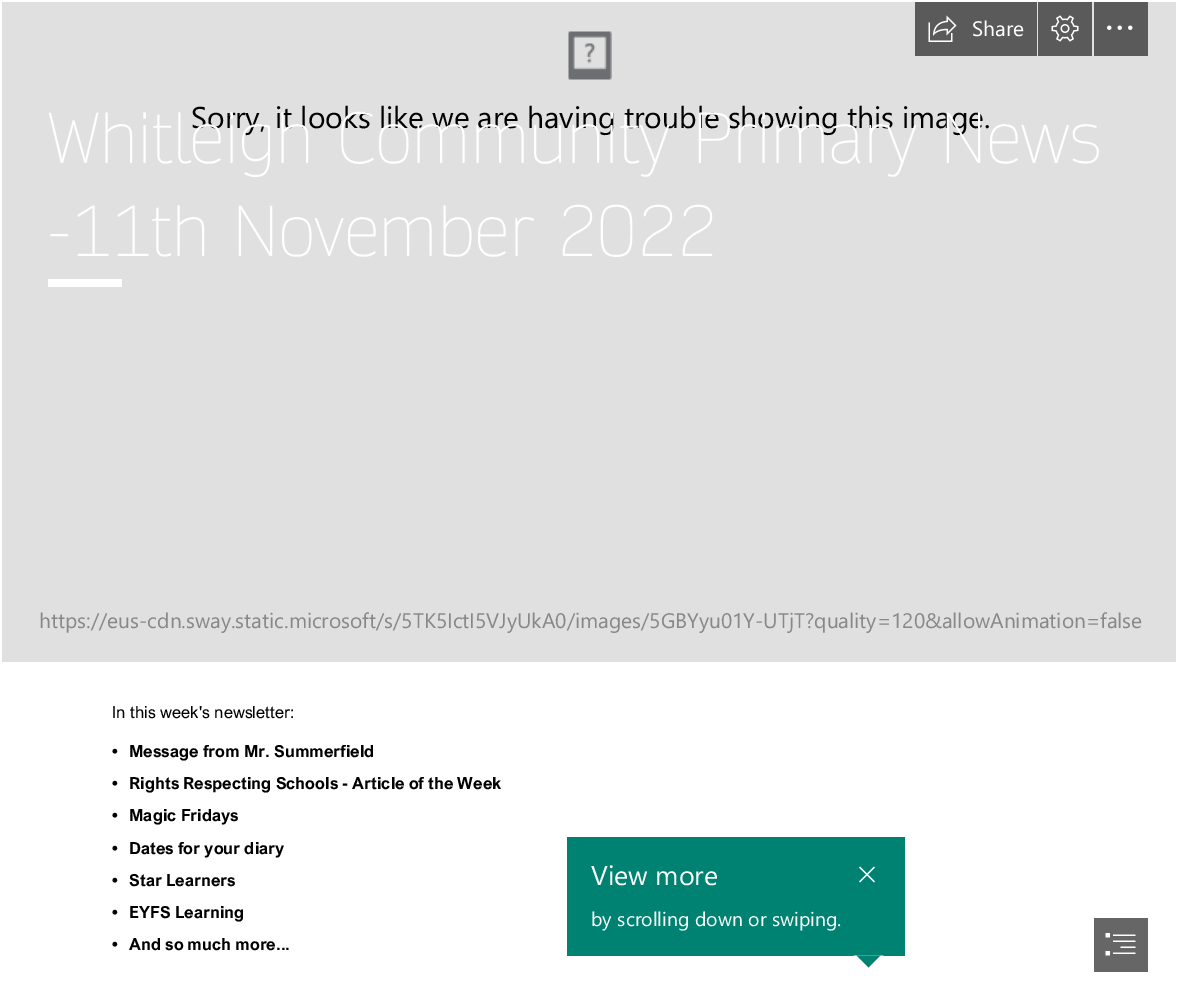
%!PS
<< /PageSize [1177 1003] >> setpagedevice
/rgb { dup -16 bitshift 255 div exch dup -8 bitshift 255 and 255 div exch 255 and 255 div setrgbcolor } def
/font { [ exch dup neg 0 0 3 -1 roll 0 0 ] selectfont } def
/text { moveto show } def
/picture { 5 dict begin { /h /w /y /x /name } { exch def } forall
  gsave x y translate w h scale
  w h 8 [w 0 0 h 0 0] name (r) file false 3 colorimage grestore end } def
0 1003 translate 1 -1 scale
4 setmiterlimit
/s1 { /SegoeUI-Regular 21 font 16#FFFFFF rgb } def
/s2 { /SegoeUI-Regular 30 font 16#000000 rgb } def
/s3 { /SegoeUI-Regular 21 font 16#888888 rgb } def
/s4 { /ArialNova-Regular 16.6 font 16#000000 rgb } def
/s5 { /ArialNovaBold-Bold 16.6 font 16#000000 rgb } def
/s6 { /SegoeUI-Regular 27 font 16#FFFFFF rgb } def
/s7 { /SegoeUI-Regular 19.5 font 16#FFFFFF rgb } def
16#FFFFFF rgb
0 0 1177 1003 rectfill
16#E0E0E0 rgb
2 2 1174 660 rectfill
16#5A5A5A rgb
915 2 122 54 rectfill
(pic1.raw) 928 15 29 27 picture
s1
(Share) 972 36 text
16#5A5A5A rgb
1038 2 54 54 rectfill
(pic2.raw) 1051 15 28 27 picture
1094 2 54 54 rectfill
(pic3.raw) 1107 25 26 5 picture
(pic4.raw) 568 31 44 49 picture
s2
(Sorry, it looks like we are having trouble showing this image.) 191 128 text
s3
(https://eus-cdn.sway.static.microsoft/s/5TK5IctI5VJyUkA0/images/5GBYyu01Y-UTjT?quality=120&allowAnimation=false) 39 628 text
/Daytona-Thin 69 font
16#FFFFFF rgb
47 163 moveto -1.25 0 (Whitleigh Community Primary News) ashow
47 256 moveto -1.25 0 (-11th November 2022) ashow
48 279 74 8 rectfill
s4
(In this week's newsletter:) 112 718 text
s5
(•) 112 757 text
(Message from Mr. Summerfield) 129 757 text
(•) 112 789 text
(Rights Respecting Schools - Article of the Week) 129 789 text
(•) 112 821 text
(Magic Fridays) 129 821 text
(•) 112 854 text
(Dates for your diary) 129 854 text
(•) 112 886 text
(Star Learners) 129 886 text
(•) 112 918 text
(EYFS Learning) 129 918 text
(•) 112 950 text
(And so much more...) 129 950 text
16#008272 rgb
567 837 338 119 rectfill
s6
(View more) 591 885 text
s7
(by scrolling down or swiping.) 591 926 text
(pic5.raw) 859 866 16 17 picture
853.5 955.5 moveto 883.5 955.5 lineto 868.5 970.5 lineto closepath fill
16#008272 rgb
856.5 955.5 moveto 880.5 955.5 lineto 868.5 967.5 lineto closepath fill
16#666666 rgb
1094 918 54 54 rectfill
(pic6.raw) 1105 933 31 23 picture
showpage
